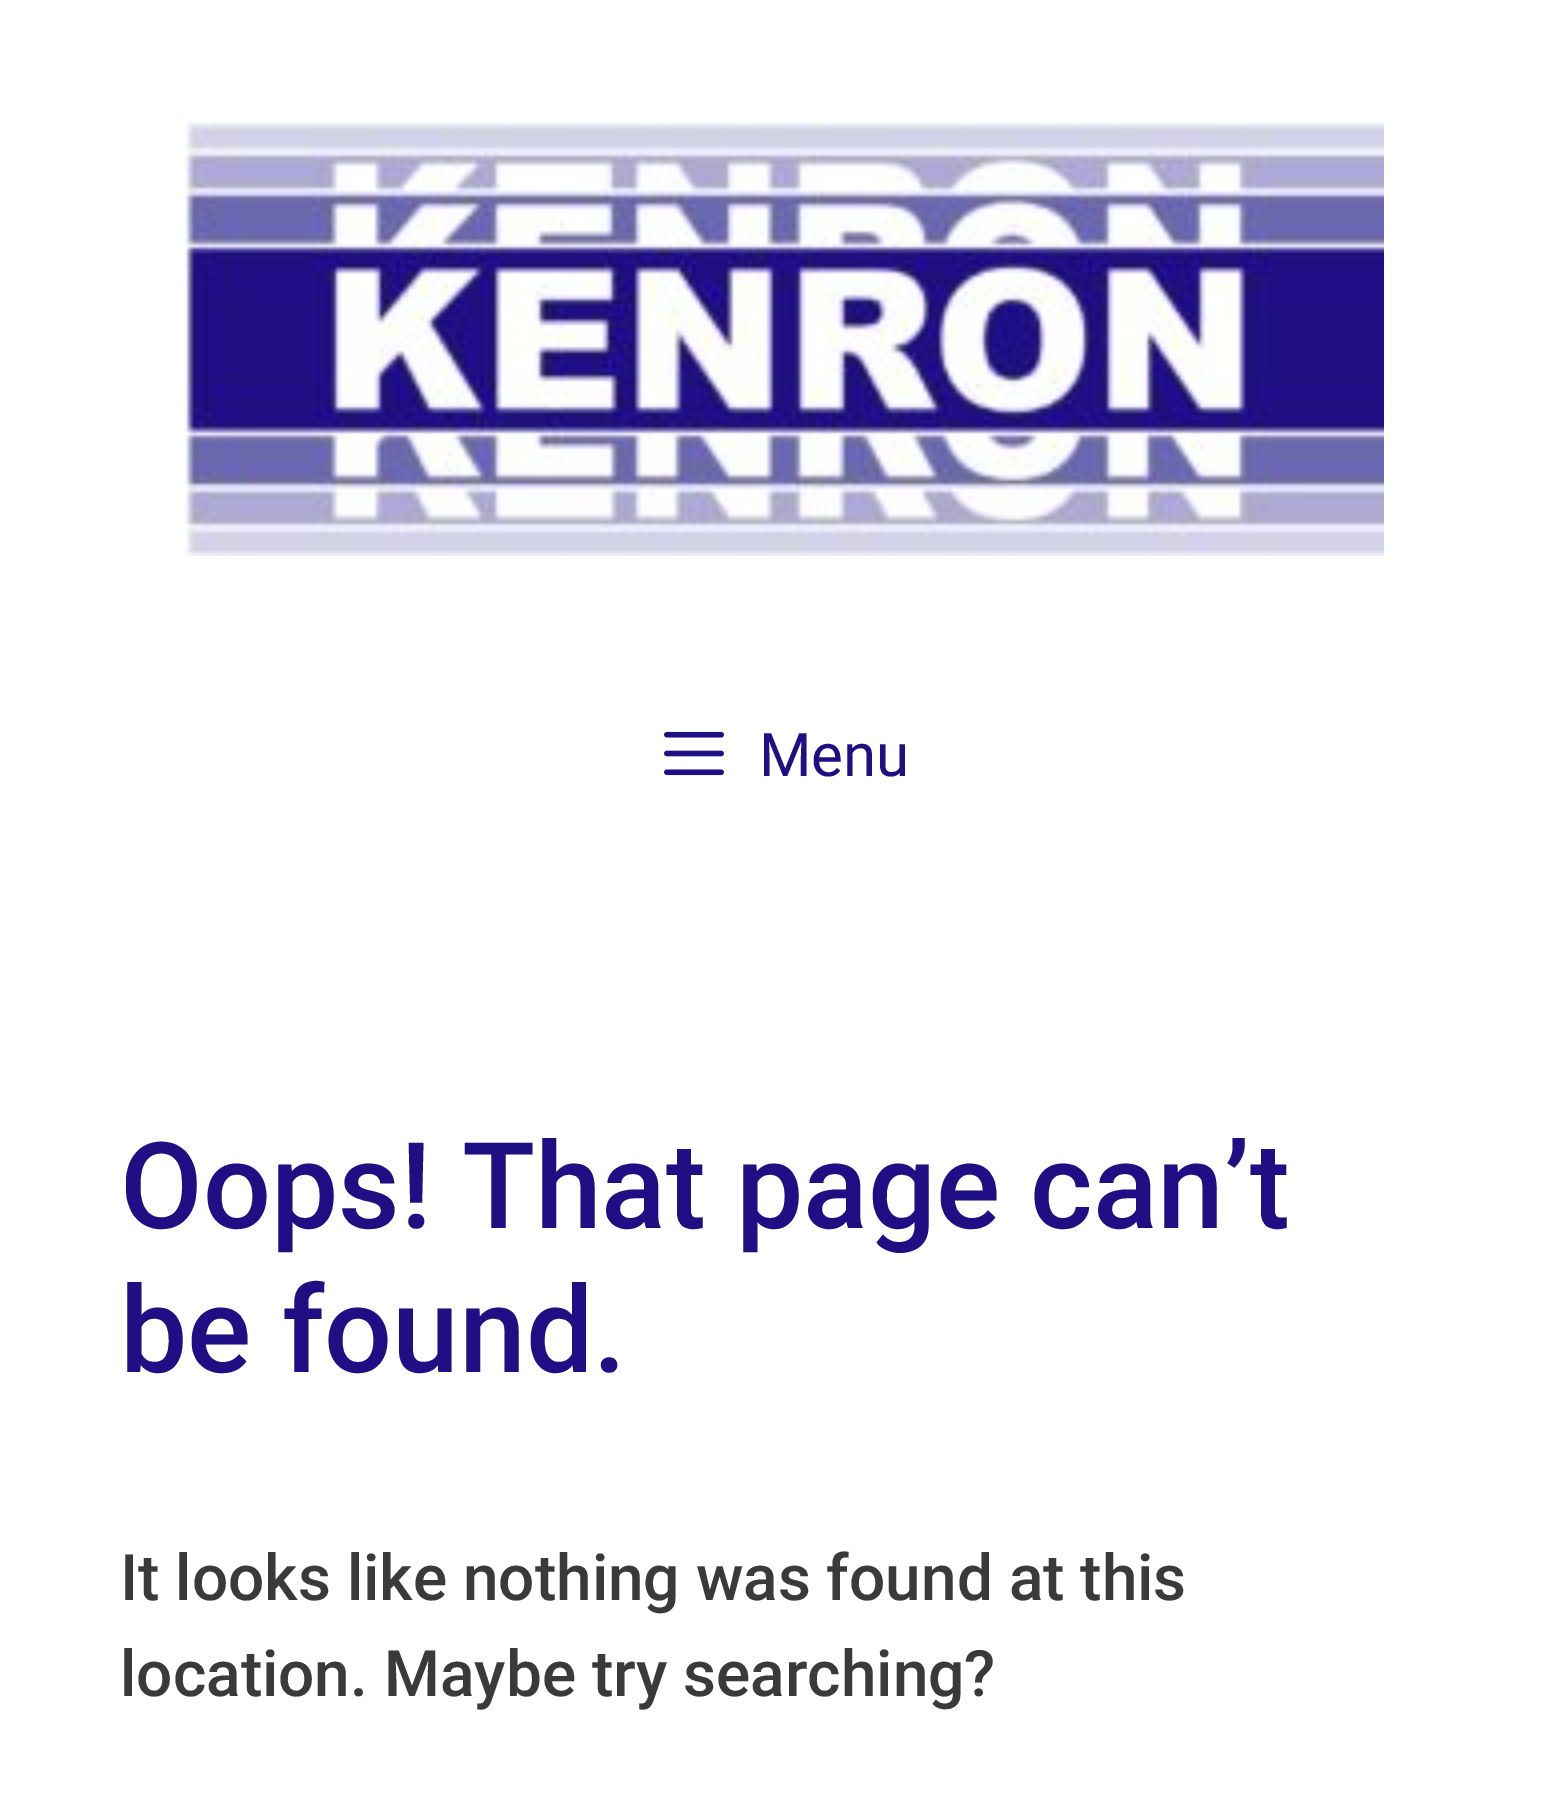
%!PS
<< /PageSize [1564 1805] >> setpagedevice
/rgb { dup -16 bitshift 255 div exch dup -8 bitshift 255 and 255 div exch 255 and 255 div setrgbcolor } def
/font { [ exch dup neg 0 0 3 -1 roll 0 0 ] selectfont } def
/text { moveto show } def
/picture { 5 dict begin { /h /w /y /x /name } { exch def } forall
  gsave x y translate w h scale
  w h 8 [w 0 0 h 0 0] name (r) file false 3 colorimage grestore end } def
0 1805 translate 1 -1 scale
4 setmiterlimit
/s1 { /Roboto-Regular 60 font 16#200E84 rgb } def
/s2 { /Roboto-Medium 120 font 16#200E84 rgb } def
/s3 { /Roboto-Medium 64 font 16#3A3A3A rgb } def
16#FFFFFF rgb
0 0 1564 1805 rectfill
(pic1.raw) 184 120 1200 436 picture
(pic2.raw) 664 731 60 45 picture
s1
(Menu) 759 776 text
s2
(Oops! That page can’t) 120 1228 text
(be found.) 120 1372 text
s3
(It looks like nothing was found at this) 120 1600 text
(location. Maybe try searching?) 120 1696 text
showpage
